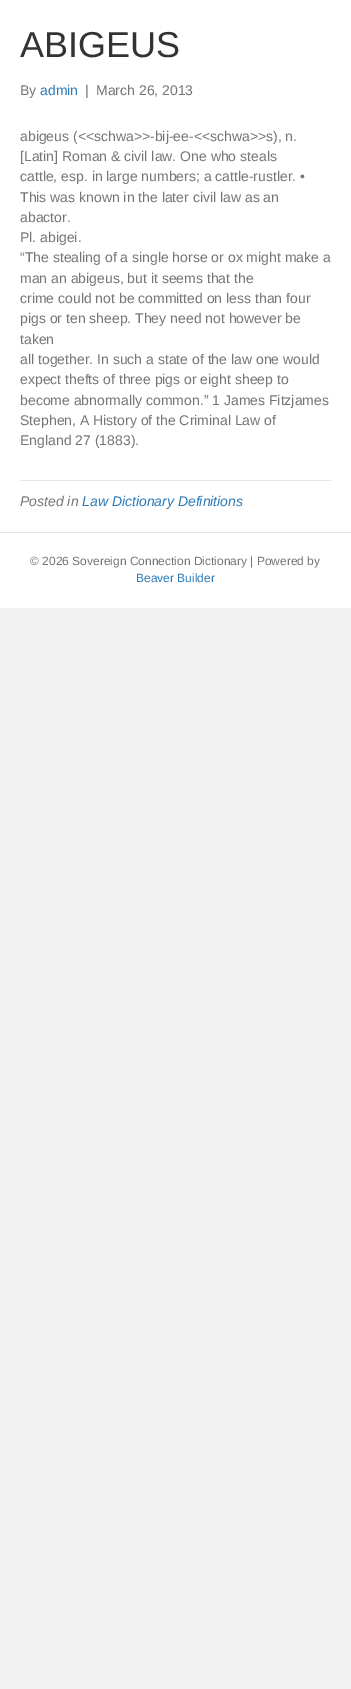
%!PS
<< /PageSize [351 1689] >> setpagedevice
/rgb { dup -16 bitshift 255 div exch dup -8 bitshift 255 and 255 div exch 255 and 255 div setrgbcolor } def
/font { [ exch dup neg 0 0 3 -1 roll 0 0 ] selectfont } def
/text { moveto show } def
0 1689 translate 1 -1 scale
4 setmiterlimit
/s1 { /LiberationSans-Regular 36 font 16#333333 rgb } def
/s2 { /LiberationSans-Regular 14 font 16#757575 rgb } def
/s3 { /LiberationSans-Regular 14 font 16#2B7BB9 rgb } def
/s4 { /LiberationSans-Italic 14 font 16#757575 rgb } def
/s5 { /LiberationSans-Italic 14 font 16#2B7BB9 rgb } def
/s6 { /LiberationSans-Regular 12 font 16#757575 rgb } def
/s7 { /LiberationSans-Regular 12 font 16#2B7BB9 rgb } def
16#F2F2F2 rgb
0 0 351 1689 rectfill
16#FFFFFF rgb
0 0 351 532 rectfill
s1
(ABIGEUS) 20 57 text
s2
(By) 20 95 text
s3
(admin) 40 95 text
s2
(|) 85 95 text
(March 26, 2013) 96 95 text
(abigeus \(<<schwa>>-bij-ee-<<schwa>>s\), n.) 20 141 text
([Latin] Roman & civil law. One who steals) 20 161 text
(cattle, esp. in large numbers; a cattle-rustler. •) 20 181 text
(This was known in the later civil law as an) 20 202 text
(abactor.) 20 222 text
(Pl. abigei.) 20 242 text
(“The stealing of a single horse or ox might make a) 20 262 text
(man an abigeus, but it seems that the) 20 283 text
(crime could not be committed on less than four) 20 303 text
(pigs or ten sheep. They need not however be) 20 323 text
(taken) 20 344 text
(all together. In such a state of the law one would) 20 364 text
(expect thefts of three pigs or eight sheep to) 20 384 text
(become abnormally common.” 1 James Fitzjames) 20 405 text
(Stephen, A History of the Criminal Law of) 20 425 text
(England 27 \(1883\).) 20 445 text
16#E6E6E6 rgb
20 480 311 1 rectfill
s4
(Posted in) 20 506 text
s5
(Law Dictionary Definitions) 82 506 text
16#FFFFFF rgb
0 533 351 75 rectfill
16#E6E6E6 rgb
0 532 351 1 rectfill
s6
(© 2026 Sovereign Connection Dictionary | Powered by) 30 565 text
s7
(Beaver Builder) 136 582 text
showpage
